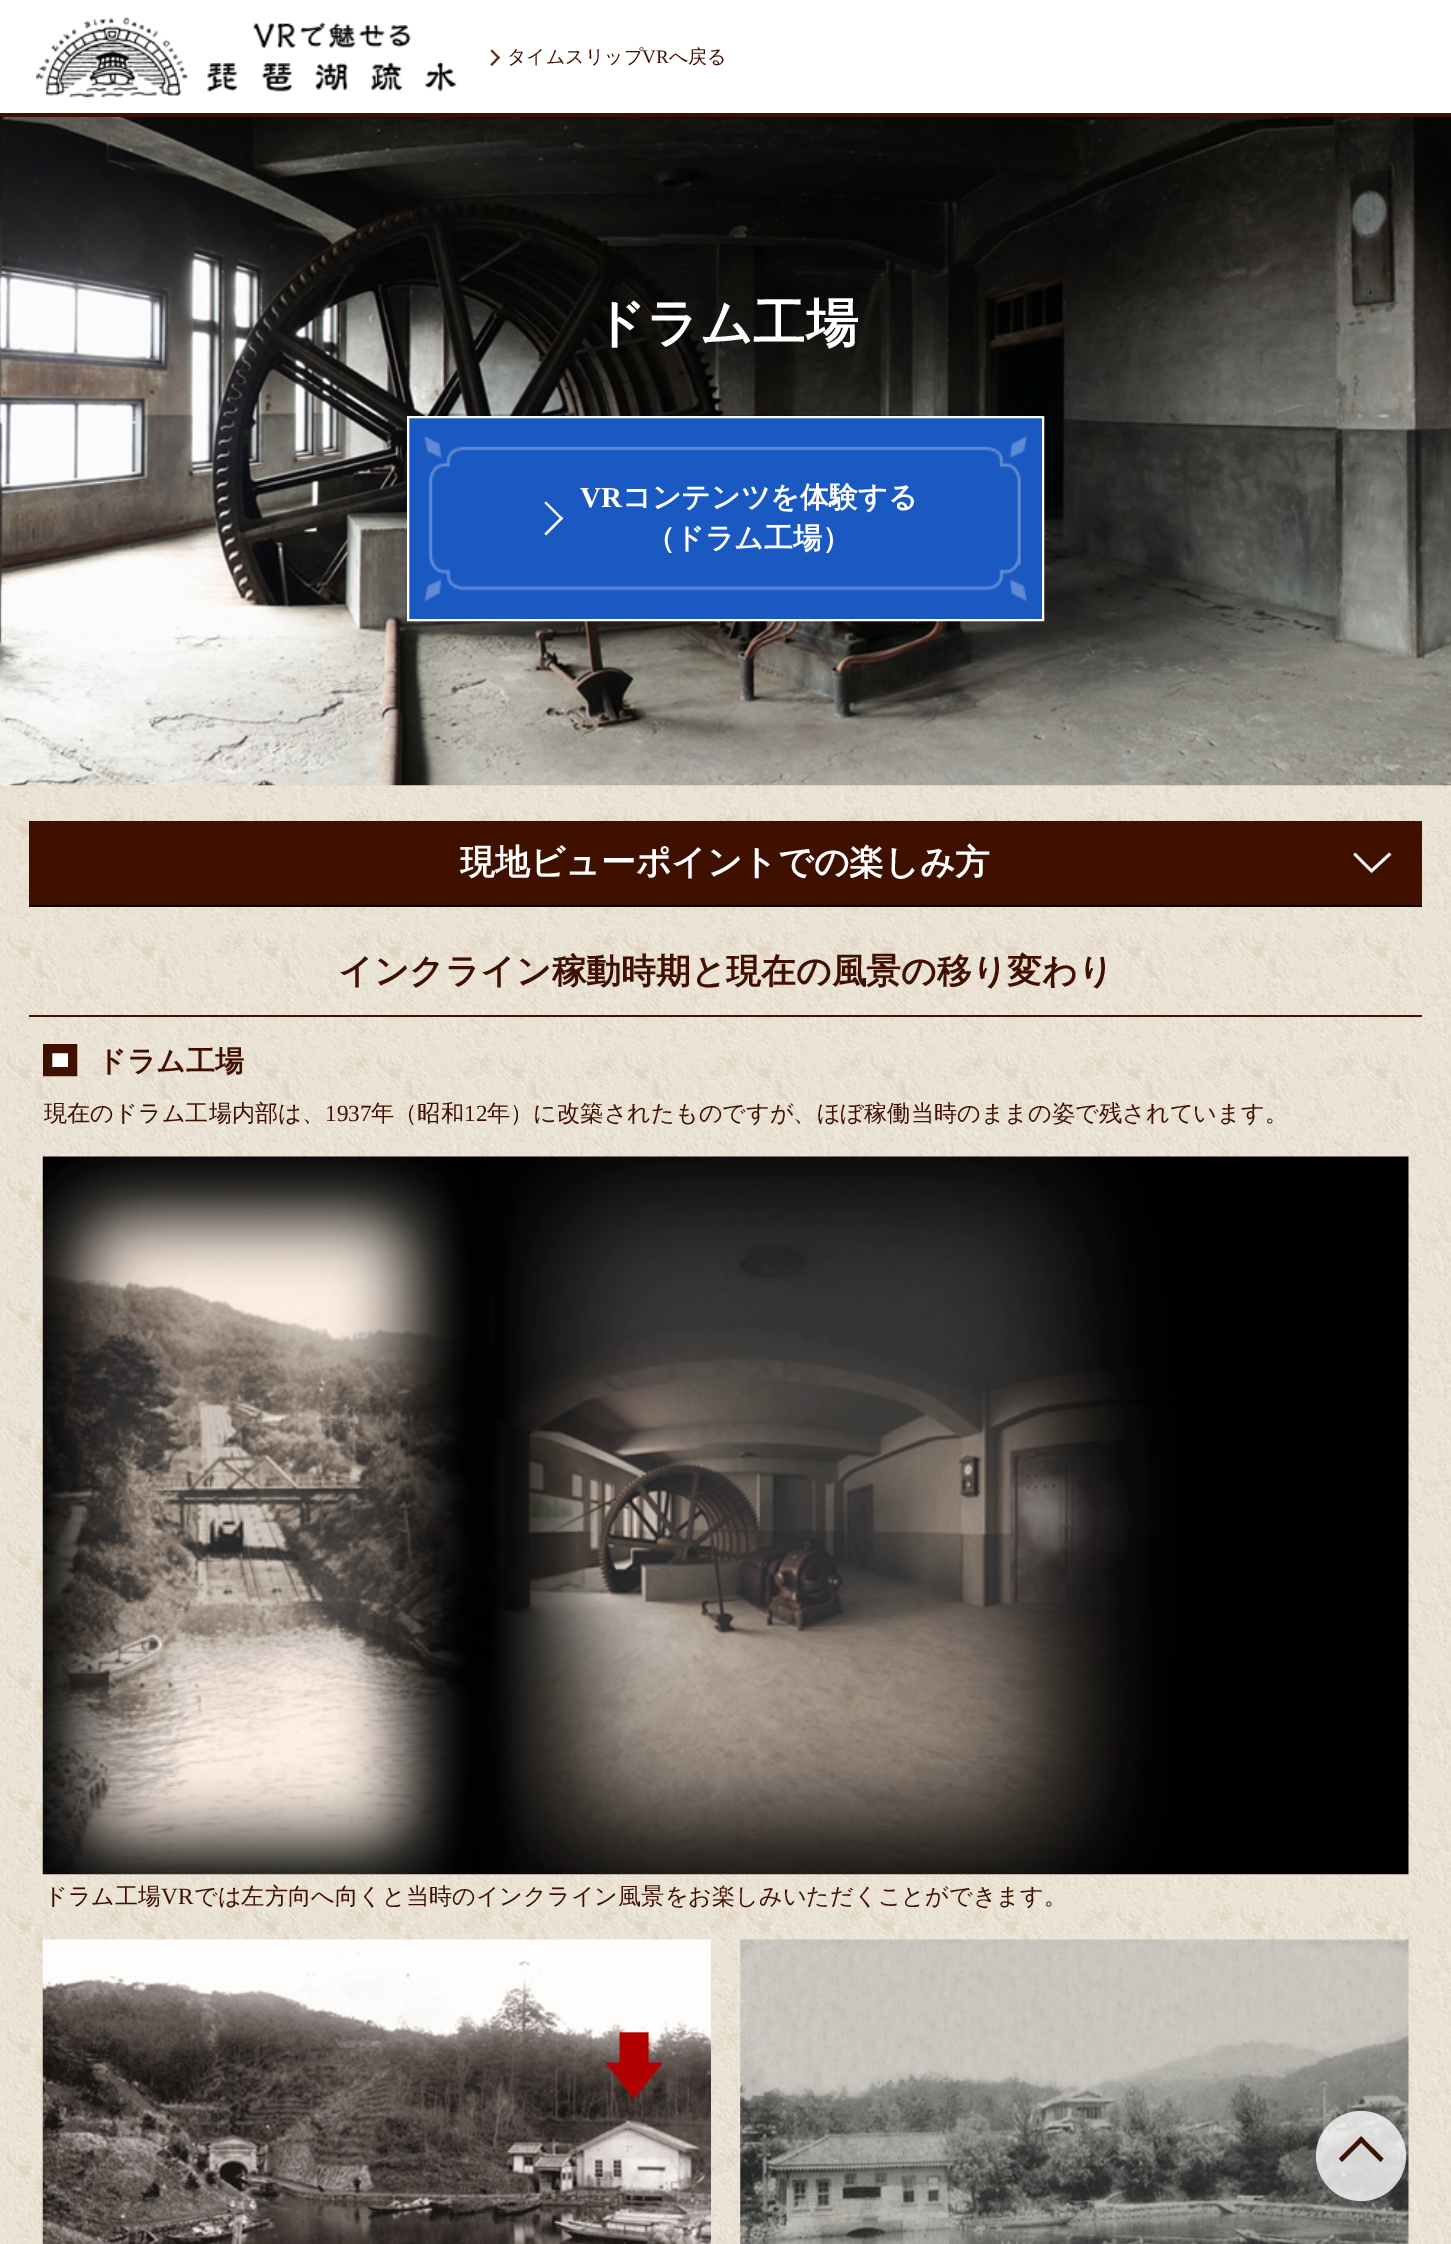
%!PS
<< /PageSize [1451 2244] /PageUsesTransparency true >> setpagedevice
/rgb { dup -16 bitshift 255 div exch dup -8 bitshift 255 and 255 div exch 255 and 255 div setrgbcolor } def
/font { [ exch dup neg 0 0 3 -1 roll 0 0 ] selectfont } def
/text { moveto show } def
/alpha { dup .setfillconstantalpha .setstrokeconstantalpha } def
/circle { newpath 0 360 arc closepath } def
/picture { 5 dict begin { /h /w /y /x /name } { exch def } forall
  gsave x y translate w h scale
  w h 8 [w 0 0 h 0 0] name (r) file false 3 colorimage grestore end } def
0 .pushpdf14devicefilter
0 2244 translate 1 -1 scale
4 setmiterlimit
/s1 { /WenQuanYiZenHei-Medium 19 font 16#3F1000 rgb } def
/s2 { /LiberationSerif-Regular 19 font 16#3F1000 rgb } def
/s3 { /WenQuanYiZenHei-Bold 52.25 font 16#FFFFFF rgb } def
/s4 { /LiberationSerif-Bold 29 font 16#FFFFFF rgb } def
/s5 { /WenQuanYiZenHei-Bold 29 font 16#FFFFFF rgb } def
/s6 { /WenQuanYiZenHei-Bold 34.8 font 16#FFFFFF rgb } def
/s7 { /WenQuanYiZenHei-Bold 34.8 font 16#3F1000 rgb } def
/s8 { /WenQuanYiZenHei-Bold 29 font 16#3F1000 rgb } def
/s9 { /WenQuanYiZenHei-Medium 23.2 font 16#3F1000 rgb } def
/s10 { /LiberationSerif-Regular 23.2 font 16#3F1000 rgb } def
16#FFFFFF rgb
0 0 1451 2244 rectfill
16#401000 rgb
0 113 1451 4 rectfill
(pic1.raw) 36 17 421 81 picture
16#5C3325 rgb
492 49.5 moveto 500 57.5 lineto 498.5 59 lineto 490.5 51 lineto closepath fill
498.5 56 moveto 500 57.5 lineto 492 66 lineto 490.5 64.5 lineto closepath fill
s1
(タイムスリップ) 507 63 text
s2
(VR) 642 63 text
s1
(へ戻る) 669 63 text
(pic2.raw) 0 785 1451 1459 picture
(pic3.raw) 0 117 1451 669 picture
s3
(ドラム工場) 593 341 text
16#1B59C2 rgb
409 418 633 201 rectfill
(pic4.raw) 424 436 603 165 picture
16#FFFFFF rgb
2 setlinewidth
408 417 635 203 rectstroke
s4
(VR) 580 507 text
s5
(コンテンツを体験する) 622 507 text
546 501.5 moveto 563 518.5 lineto 561.5 520 lineto 544.5 503 lineto closepath fill
561.5 516.5 moveto 563 518.5 lineto 546 535.5 lineto 544.5 533.5 lineto closepath fill
(（ドラム工場）) 646 548 text
16#3F1000 rgb
29 821 1393 84 rectfill
16#000000 rgb
29 905 1393 2 rectfill
s6
(現地ビューポイントでの楽しみ方) 460 874 text
(pic5.raw) 1353 852 39 22 picture
16#401000 rgb
29 1015 1393 2 rectfill
s7
(インクライン稼動時期と現在の風景の移り変わり) 338 983 text
16#FFFFFF rgb
47.5 1048.5 moveto 72.5 1048.5 lineto 72.5 1071.5 lineto 47.5 1071.5 lineto closepath gsave fill grestore
16#3F1000 rgb
9 setlinewidth
stroke
s8
(ドラム工場) 97 1071 text
s9
(現在のドラム工場内部は、) 44 1121 text
s10
(1937) 325 1121 text
s9
(年（昭和) 371 1121 text
s10
(12) 464 1121 text
s9
(年）に改築されたものですが、ほぼ稼働当時のままの姿で残されています。) 487 1121 text
(pic6.raw) 42 1156 1367 719 picture
(ドラム工場) 44 1904 text
s10
(VR) 161 1904 text
s9
(では左方向へ向くと当時のインクライン風景をお楽しみいただくことができます。) 194 1904 text
(pic7.raw) 42 1939 669 305 picture
(pic8.raw) 740 1939 669 305 picture
0.8 alpha
16#FFFFFF rgb
1361 2156 45 circle fill
1 alpha
16#401000 rgb
1361 2136.5 moveto 1383.5 2158.5 lineto 1380.5 2162 lineto 1358 2139.5 lineto closepath fill
1361 2136.5 moveto 1364.5 2139.5 lineto 1342 2162 lineto 1339 2158.5 lineto closepath fill
.poppdf14devicefilter showpage
